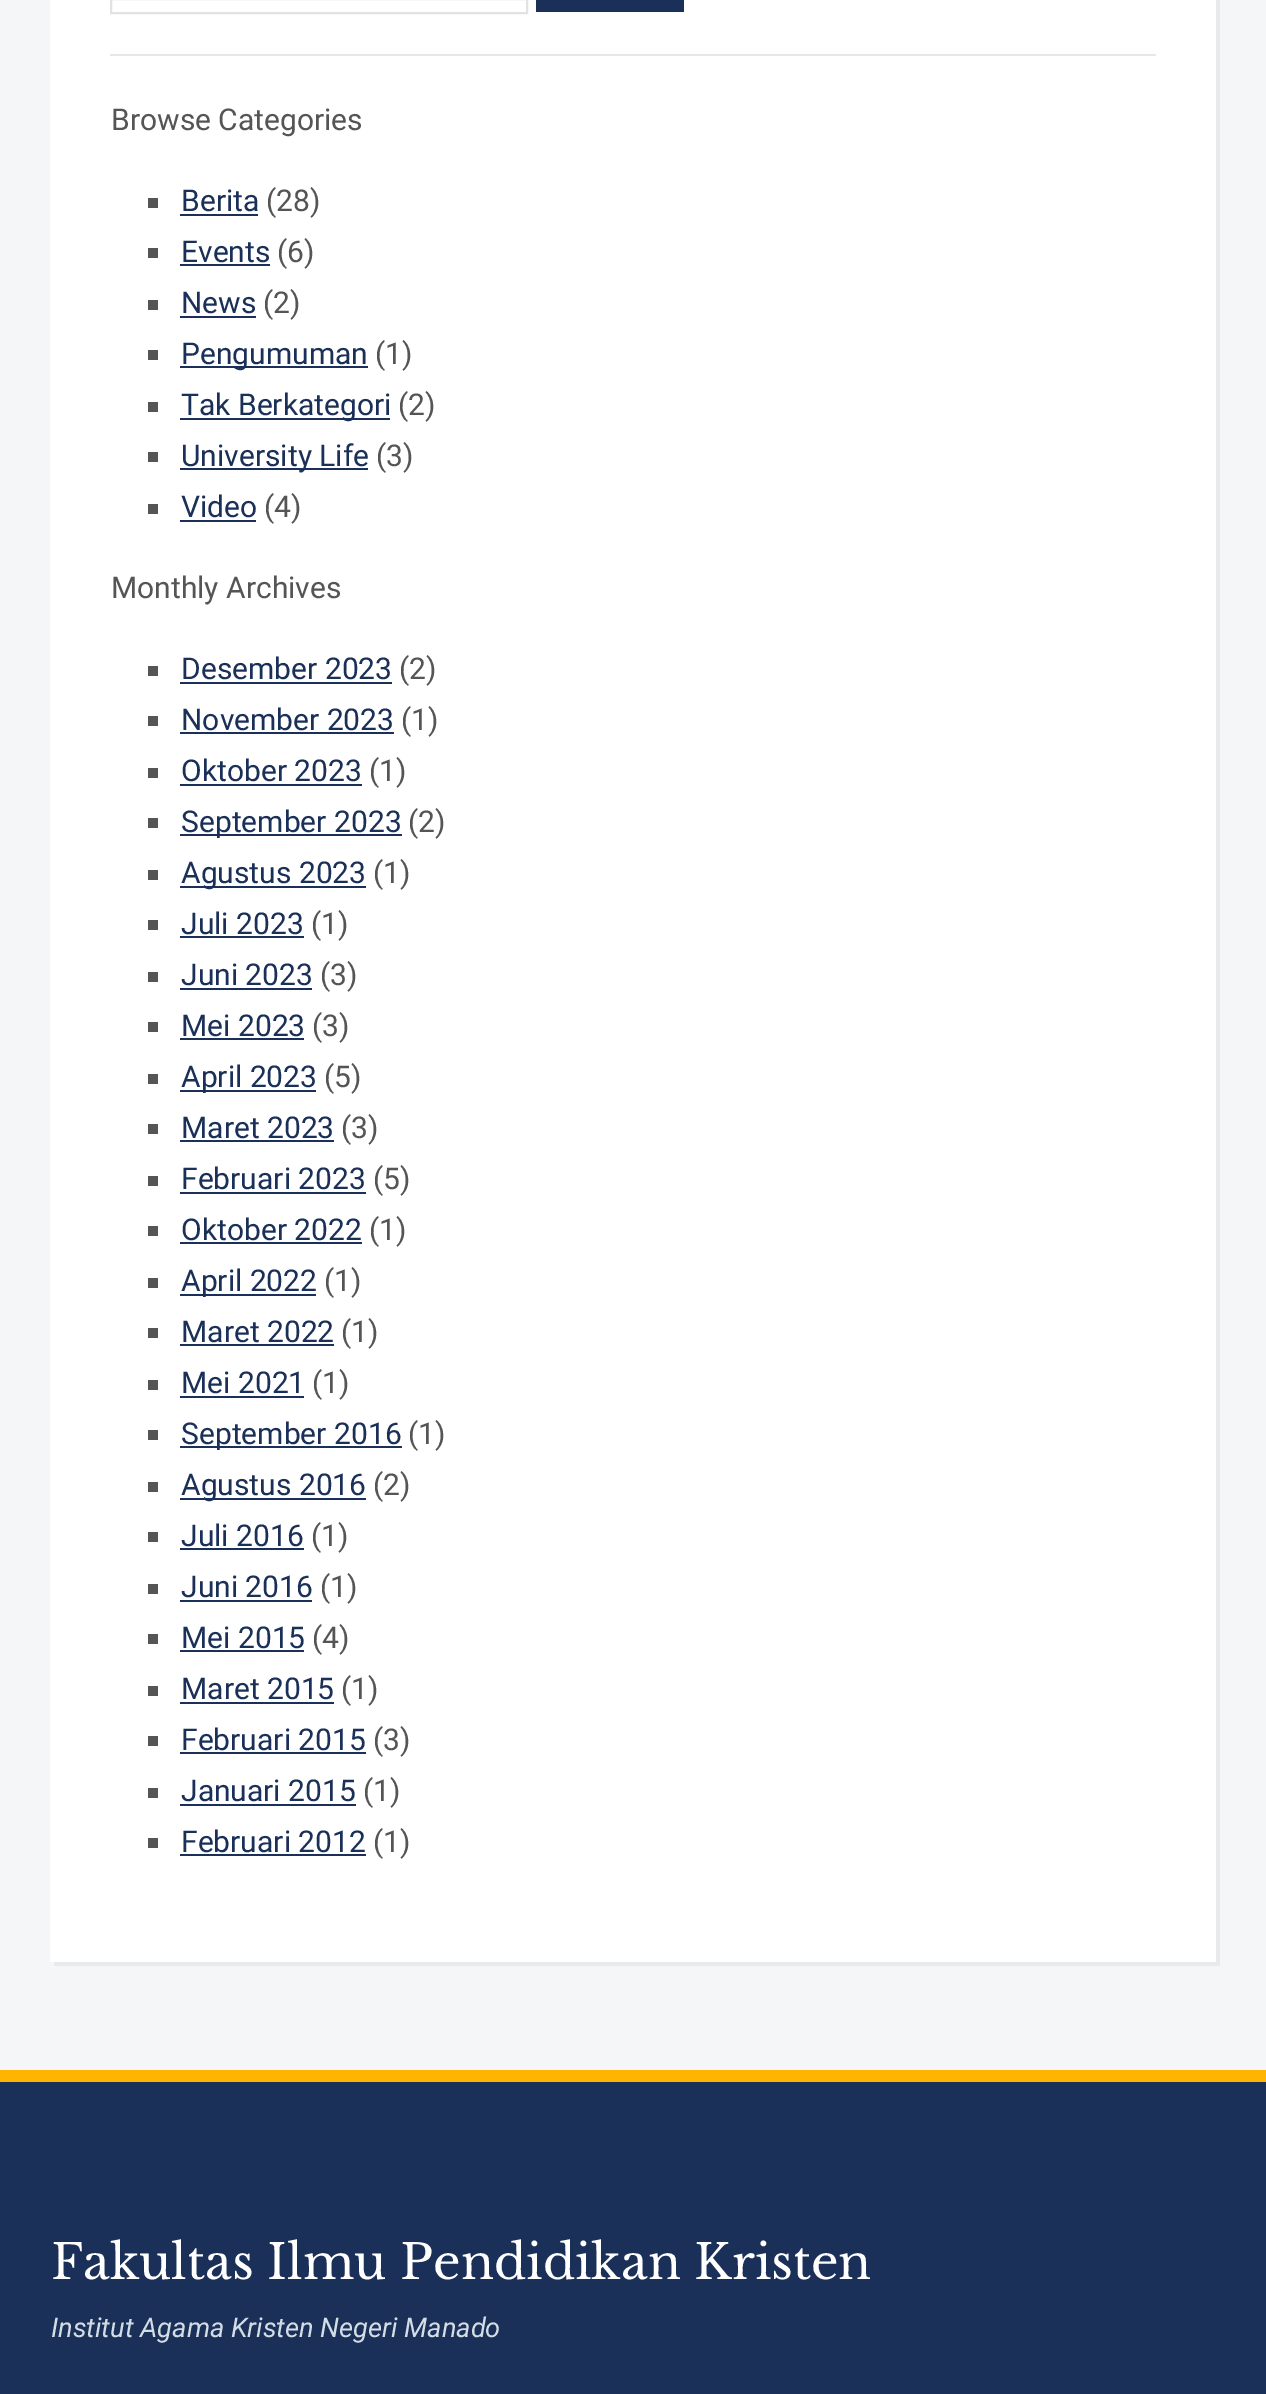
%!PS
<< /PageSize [1266 2394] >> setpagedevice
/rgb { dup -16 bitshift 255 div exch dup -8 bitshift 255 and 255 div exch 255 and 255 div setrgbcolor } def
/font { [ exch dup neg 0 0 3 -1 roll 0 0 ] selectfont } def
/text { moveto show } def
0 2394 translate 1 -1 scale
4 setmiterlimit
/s1 { /Roboto-Regular 30 font 16#555555 rgb } def
/s2 { /Roboto-Regular 30 font 16#1B3058 rgb } def
/s3 { /LibreBaskerville-Regular 48 font 16#FFFFFF rgb } def
/s4 { /Roboto-Italic 27.25 font 16#D3DDE6 rgb } def
16#F4F6F8 rgb
0 0 1266 2394 rectfill
16#E8EAEC rgb
54 1962 moveto 54 1966 lineto 1220 1966 lineto 1220 -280 lineto 1216 -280 lineto 1216 1962 lineto closepath fill
16#FFFFFF rgb
50 0 1166 1962 rectfill
16#E2E2E2 rgb
2 setlinewidth
111 -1 416 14 rectstroke
16#1B3058 rgb
536 0 148 12 rectfill
16#E7E7E7 rgb
110 54 1046 2 rectfill
s1
(Browse Categories) 111 130 text
148 198 10 10 rectfill
s2
(Berita) 181 211 text
180 214 78 2 rectfill
s1
(\(28\)) 266 211 text
148 248 10 10 rectfill
s2
(Events) 181 262 text
180 264 90 2 rectfill
s1
(\(6\)) 277 262 text
148 300 10 10 rectfill
s2
(News) 181 313 text
180 316 76 2 rectfill
s1
(\(2\)) 263 313 text
148 350 10 10 rectfill
16#1B3058 rgb
180 366 188 2 rectfill
(Pengumuman) 181 364 text
s1
(\(1\)) 375 364 text
148 402 10 10 rectfill
16#1B3058 rgb
180 418 210 2 rectfill
(Tak Berkategori) 181 415 text
s1
(\(2\)) 398 415 text
148 452 10 10 rectfill
16#1B3058 rgb
180 468 188 2 rectfill
(University Life) 181 466 text
s1
(\(3\)) 376 466 text
148 504 10 10 rectfill
s2
(Video) 181 517 text
180 520 76 2 rectfill
s1
(\(4\)) 264 517 text
(Monthly Archives) 111 598 text
148 666 10 10 rectfill
s2
(Desember 2023) 181 679 text
180 682 212 2 rectfill
s1
(\(2\)) 399 679 text
148 716 10 10 rectfill
s2
(November 2023) 181 730 text
180 732 214 2 rectfill
s1
(\(1\)) 401 730 text
148 768 10 10 rectfill
s2
(Oktober 2023) 181 781 text
180 784 182 2 rectfill
s1
(\(1\)) 369 781 text
148 818 10 10 rectfill
16#1B3058 rgb
180 834 222 2 rectfill
(September 2023) 181 832 text
s1
(\(2\)) 408 832 text
148 870 10 10 rectfill
16#1B3058 rgb
180 886 186 2 rectfill
(Agustus 2023) 181 883 text
s1
(\(1\)) 373 883 text
148 920 10 10 rectfill
s2
(Juli 2023) 181 934 text
180 936 124 2 rectfill
s1
(\(1\)) 311 934 text
148 972 10 10 rectfill
s2
(Juni 2023) 181 985 text
180 988 132 2 rectfill
s1
(\(3\)) 320 985 text
148 1022 10 10 rectfill
s2
(Mei 2023) 181 1036 text
180 1038 124 2 rectfill
s1
(\(3\)) 312 1036 text
148 1074 10 10 rectfill
16#1B3058 rgb
180 1090 136 2 rectfill
(April 2023) 181 1087 text
s1
(\(5\)) 324 1087 text
148 1124 10 10 rectfill
s2
(Maret 2023) 181 1138 text
180 1140 154 2 rectfill
s1
(\(3\)) 341 1138 text
148 1176 10 10 rectfill
s2
(Februari 2023) 181 1189 text
180 1192 186 2 rectfill
s1
(\(5\)) 373 1189 text
148 1226 10 10 rectfill
s2
(Oktober 2022) 181 1240 text
180 1242 182 2 rectfill
s1
(\(1\)) 369 1240 text
148 1278 10 10 rectfill
16#1B3058 rgb
180 1294 136 2 rectfill
(April 2022) 181 1291 text
s1
(\(1\)) 324 1291 text
148 1328 10 10 rectfill
s2
(Maret 2022) 181 1342 text
180 1344 154 2 rectfill
s1
(\(1\)) 341 1342 text
148 1380 10 10 rectfill
s2
(Mei 2021) 181 1393 text
180 1396 124 2 rectfill
s1
(\(1\)) 312 1393 text
148 1430 10 10 rectfill
16#1B3058 rgb
180 1446 222 2 rectfill
(September 2016) 181 1444 text
s1
(\(1\)) 408 1444 text
148 1482 10 10 rectfill
16#1B3058 rgb
180 1498 186 2 rectfill
(Agustus 2016) 181 1495 text
s1
(\(2\)) 373 1495 text
148 1532 10 10 rectfill
s2
(Juli 2016) 181 1546 text
180 1548 124 2 rectfill
s1
(\(1\)) 311 1546 text
148 1584 10 10 rectfill
s2
(Juni 2016) 181 1597 text
180 1600 132 2 rectfill
s1
(\(1\)) 320 1597 text
148 1634 10 10 rectfill
s2
(Mei 2015) 181 1648 text
180 1650 124 2 rectfill
s1
(\(4\)) 312 1648 text
148 1686 10 10 rectfill
s2
(Maret 2015) 181 1699 text
180 1702 154 2 rectfill
s1
(\(1\)) 341 1699 text
148 1736 10 10 rectfill
s2
(Februari 2015) 181 1750 text
180 1752 186 2 rectfill
s1
(\(3\)) 373 1750 text
148 1788 10 10 rectfill
s2
(Januari 2015) 181 1801 text
180 1804 176 2 rectfill
s1
(\(1\)) 363 1801 text
148 1838 10 10 rectfill
s2
(Februari 2012) 181 1852 text
180 1854 186 2 rectfill
s1
(\(1\)) 373 1852 text
16#1B3058 rgb
0 2082 1266 312 rectfill
16#FFB400 rgb
0 2070 1266 12 rectfill
s3
(Fakultas Ilmu Pendidikan Kristen) 51 2279 text
s4
(Institut Agama Kristen Negeri Manado) 51 2337 text
showpage
